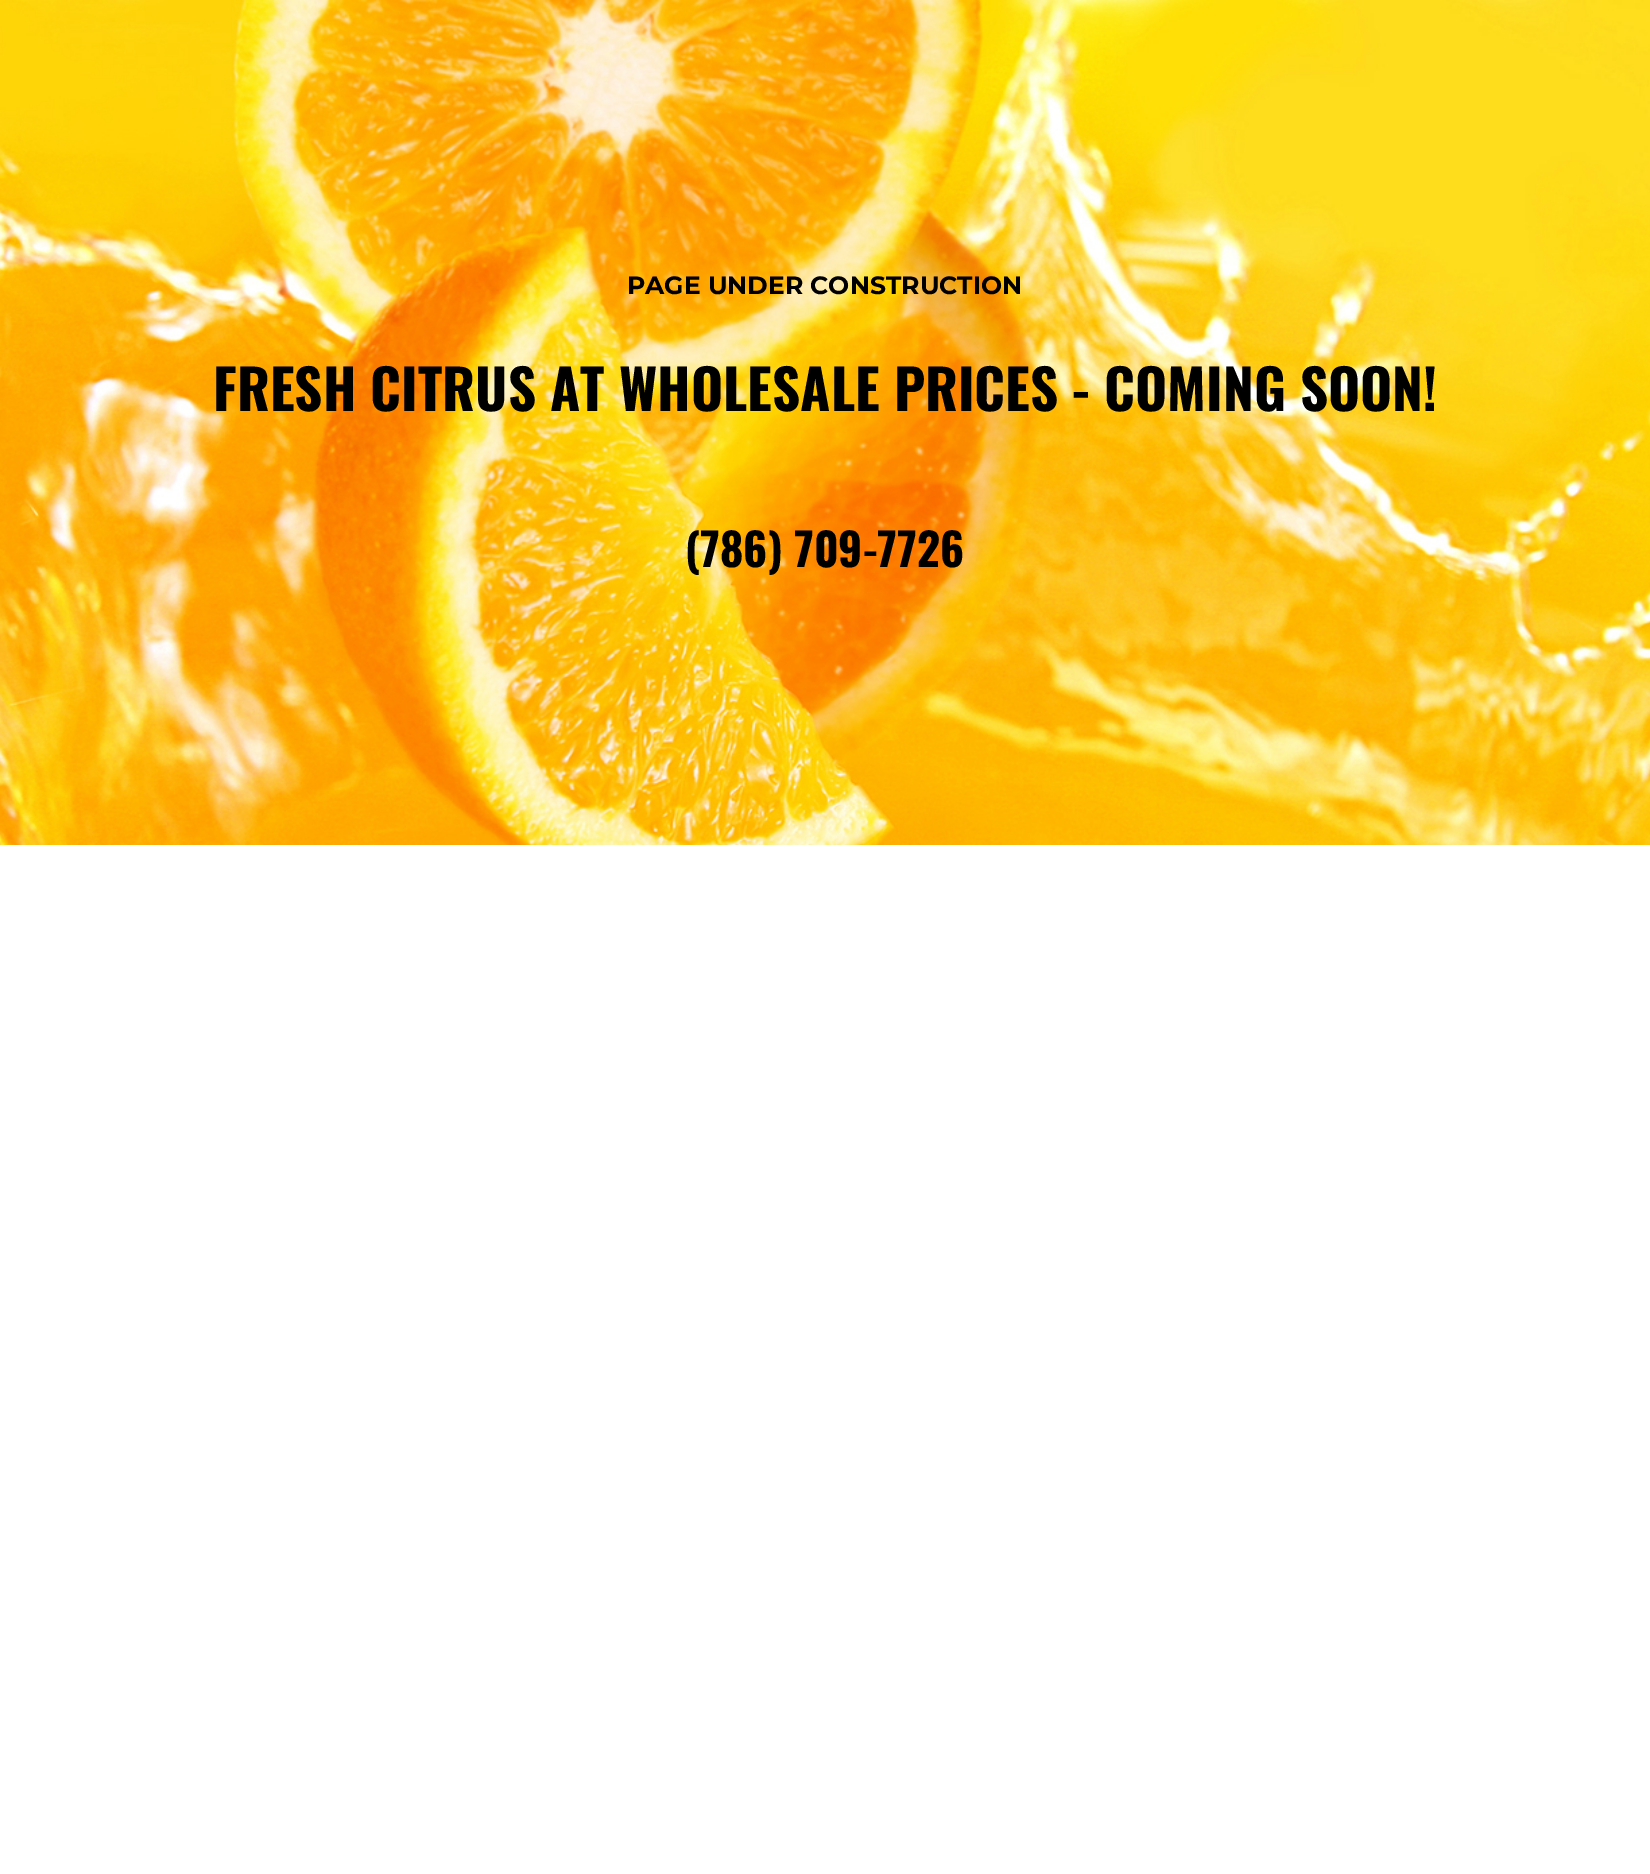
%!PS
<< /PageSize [1650 1874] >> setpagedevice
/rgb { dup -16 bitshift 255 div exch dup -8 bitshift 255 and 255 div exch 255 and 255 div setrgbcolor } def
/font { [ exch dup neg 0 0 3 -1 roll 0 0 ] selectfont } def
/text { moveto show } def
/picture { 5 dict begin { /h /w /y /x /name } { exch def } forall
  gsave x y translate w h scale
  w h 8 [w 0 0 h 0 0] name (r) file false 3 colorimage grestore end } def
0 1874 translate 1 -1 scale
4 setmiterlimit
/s1 { /Montserrat-Bold 25 font 16#000000 rgb } def
/s2 { /Oswald-Bold 55 font 16#000000 rgb } def
/s3 { /Oswald-Bold 45 font 16#000000 rgb } def
16#FFFFFF rgb
0 0 1650 1874 rectfill
(pic1.raw) 0 0 1650 845 picture
s1
(PAGE UNDER CONSTRUCTION) 627 294 text
s2
(FRESH CITRUS AT WHOLESALE PRICES - COMING SOON!) 213 411 text
s3
(\(786\) 709-7726) 685 567 text
showpage
